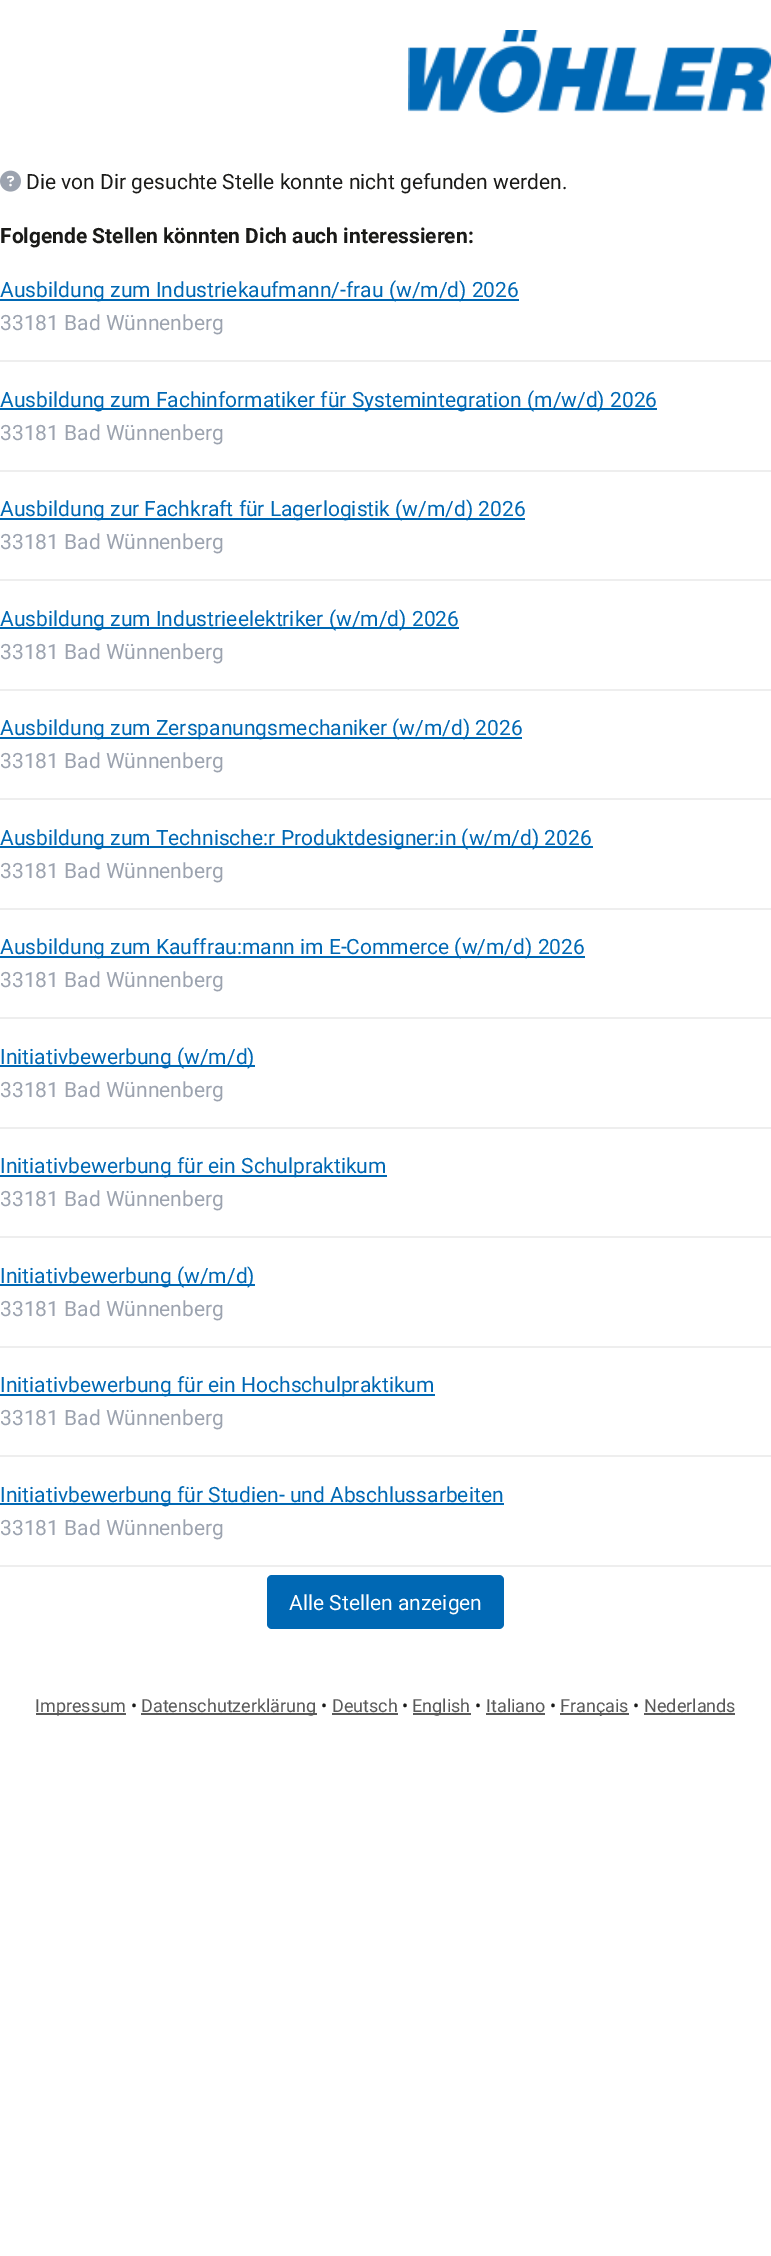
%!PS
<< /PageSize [771 2256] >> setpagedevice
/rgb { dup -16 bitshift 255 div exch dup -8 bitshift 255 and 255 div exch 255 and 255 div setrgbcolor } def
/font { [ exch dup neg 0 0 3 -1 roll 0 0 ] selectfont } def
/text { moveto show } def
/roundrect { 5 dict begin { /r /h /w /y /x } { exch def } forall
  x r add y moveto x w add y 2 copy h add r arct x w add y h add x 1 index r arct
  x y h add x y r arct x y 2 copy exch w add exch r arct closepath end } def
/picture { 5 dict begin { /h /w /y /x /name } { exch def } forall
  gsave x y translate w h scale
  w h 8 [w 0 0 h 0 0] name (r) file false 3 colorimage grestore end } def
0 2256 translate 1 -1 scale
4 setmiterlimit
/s1 { /Roboto-Regular 21 font 16#1A1A18 rgb } def
/s2 { /Roboto-Bold 21 font 16#1A1A18 rgb } def
/s3 { /Roboto-Regular 21 font 16#0068B4 rgb } def
/s4 { /Roboto-Regular 21 font 16#9CA3AF rgb } def
/s5 { /Roboto-Regular 21 font 16#FFFFFF rgb } def
/s6 { /Roboto-Regular 18 font 16#595959 rgb } def
/s7 { /Roboto-Regular 18 font 16#1A1A18 rgb } def
16#FFFFFF rgb
0 0 771 2256 rectfill
(pic1.raw) 408 30 363 84 picture
(pic2.raw) 0 170 21 22 picture
s1
(Die von Dir gesuchte Stelle konnte nicht gefunden werden.) 26 189 text
s2
(Folgende Stellen könnten Dich auch interessieren:) 0 243 text
16#EEEEEE rgb
0 360 771 2 rectfill
16#0068B4 rgb
0 299 519 2 rectfill
s3
(Ausbildung zum Industriekaufmann/-frau \(w/m/d\) 2026) 0 297 text
s4
(33181 Bad Wünnenberg) 0 330 text
16#EEEEEE rgb
0 470 771 2 rectfill
16#0068B4 rgb
0 408 657 2 rectfill
(Ausbildung zum Fachinformatiker für Systemintegration \(m/w/d\) 2026) 0 407 text
s4
(33181 Bad Wünnenberg) 0 440 text
16#EEEEEE rgb
0 579 771 2 rectfill
16#0068B4 rgb
0 518 525 2 rectfill
(Ausbildung zur Fachkraft für Lagerlogistik \(w/m/d\) 2026) 0 516 text
s4
(33181 Bad Wünnenberg) 0 549 text
16#EEEEEE rgb
0 689 771 2 rectfill
16#0068B4 rgb
0 627 459 2 rectfill
(Ausbildung zum Industrieelektriker \(w/m/d\) 2026) 0 626 text
s4
(33181 Bad Wünnenberg) 0 659 text
16#EEEEEE rgb
0 798 771 2 rectfill
16#0068B4 rgb
0 737 522 2 rectfill
(Ausbildung zum Zerspanungsmechaniker \(w/m/d\) 2026) 0 735 text
s4
(33181 Bad Wünnenberg) 0 768 text
16#EEEEEE rgb
0 908 771 2 rectfill
16#0068B4 rgb
0 846 593 2 rectfill
(Ausbildung zum Technische:r Produktdesigner:in \(w/m/d\) 2026) 0 845 text
s4
(33181 Bad Wünnenberg) 0 878 text
16#EEEEEE rgb
0 1017 771 2 rectfill
16#0068B4 rgb
0 956 585 2 rectfill
(Ausbildung zum Kauffrau:mann im E-Commerce \(w/m/d\) 2026) 0 954 text
s4
(33181 Bad Wünnenberg) 0 987 text
16#EEEEEE rgb
0 1127 771 2 rectfill
16#0068B4 rgb
0 1065 255 2 rectfill
(Initiativbewerbung \(w/m/d\)) 0 1064 text
s4
(33181 Bad Wünnenberg) 0 1097 text
16#EEEEEE rgb
0 1236 771 2 rectfill
16#0068B4 rgb
0 1175 387 2 rectfill
(Initiativbewerbung für ein Schulpraktikum) 0 1173 text
s4
(33181 Bad Wünnenberg) 0 1206 text
16#EEEEEE rgb
0 1346 771 2 rectfill
16#0068B4 rgb
0 1284 255 2 rectfill
(Initiativbewerbung \(w/m/d\)) 0 1283 text
s4
(33181 Bad Wünnenberg) 0 1316 text
16#EEEEEE rgb
0 1455 771 2 rectfill
16#0068B4 rgb
0 1394 435 2 rectfill
(Initiativbewerbung für ein Hochschulpraktikum) 0 1392 text
s4
(33181 Bad Wünnenberg) 0 1425 text
16#EEEEEE rgb
0 1565 771 2 rectfill
16#0068B4 rgb
0 1503 504 2 rectfill
(Initiativbewerbung für Studien- und Abschlussarbeiten) 0 1502 text
s4
(33181 Bad Wünnenberg) 0 1535 text
16#0068B4 rgb
267 1575 237 54 5 roundrect fill
s5
(Alle Stellen anzeigen) 289 1610 text
16#595959 rgb
36 1713 90 2 rectfill
s6
(Impressum) 35 1712 text
s7
(•) 131 1712 text
16#595959 rgb
141 1713 176 2 rectfill
(Datenschutzerklärung) 141 1712 text
s7
(•) 321 1712 text
s6
(Deutsch) 332 1712 text
332 1713 66 2 rectfill
s7
(•) 402 1712 text
16#595959 rgb
413 1713 58 2 rectfill
(English) 412 1712 text
s7
(•) 475 1712 text
s6
(Italiano) 486 1712 text
486 1713 59 2 rectfill
s7
(•) 550 1712 text
16#595959 rgb
560 1713 69 2 rectfill
(Français) 560 1712 text
s7
(•) 633 1712 text
s6
(Nederlands) 644 1712 text
644 1713 91 2 rectfill
showpage
